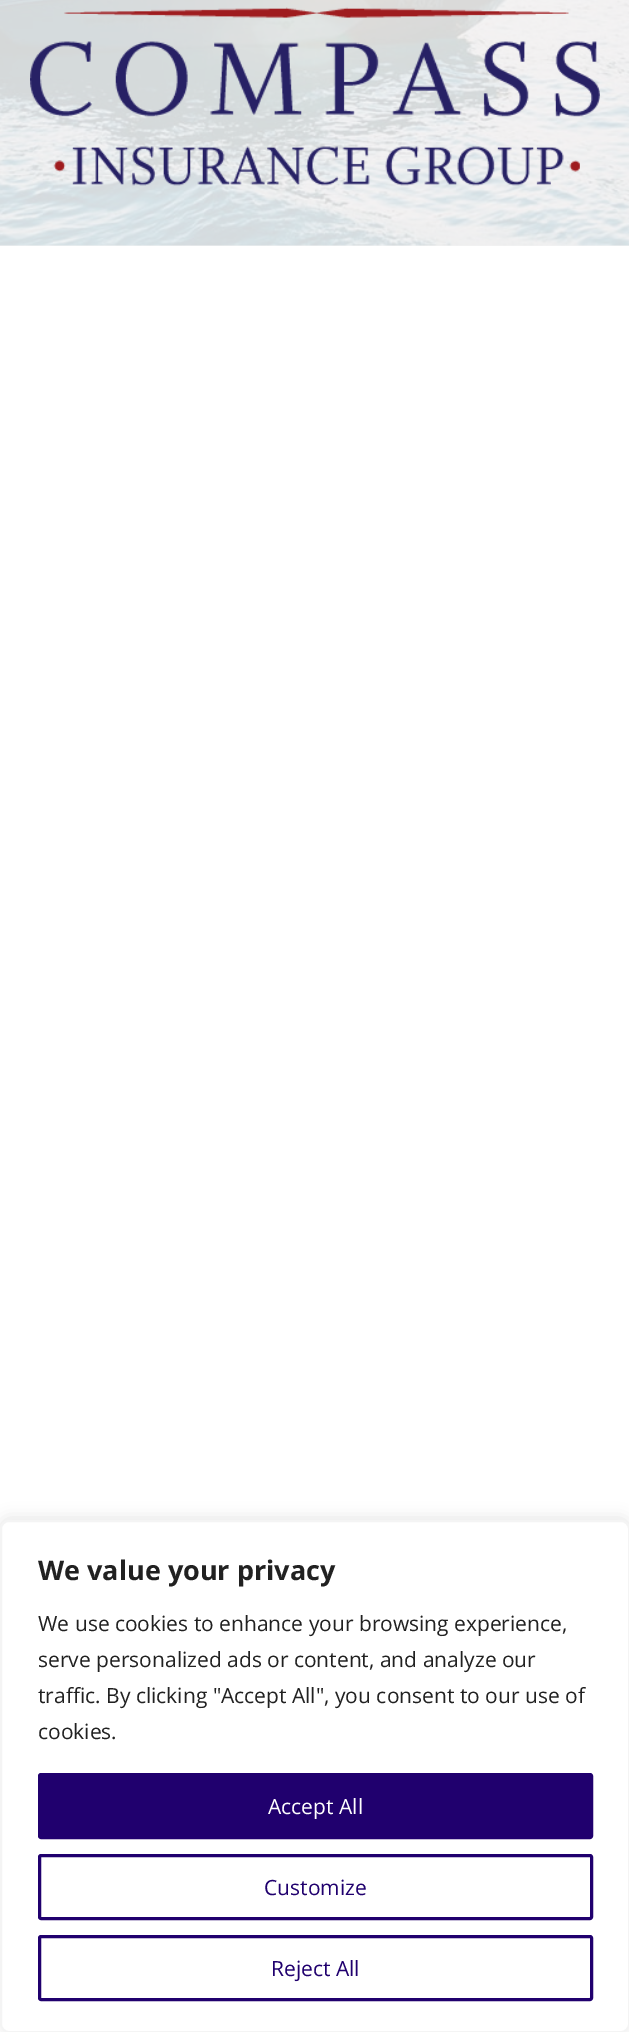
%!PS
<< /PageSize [629 2032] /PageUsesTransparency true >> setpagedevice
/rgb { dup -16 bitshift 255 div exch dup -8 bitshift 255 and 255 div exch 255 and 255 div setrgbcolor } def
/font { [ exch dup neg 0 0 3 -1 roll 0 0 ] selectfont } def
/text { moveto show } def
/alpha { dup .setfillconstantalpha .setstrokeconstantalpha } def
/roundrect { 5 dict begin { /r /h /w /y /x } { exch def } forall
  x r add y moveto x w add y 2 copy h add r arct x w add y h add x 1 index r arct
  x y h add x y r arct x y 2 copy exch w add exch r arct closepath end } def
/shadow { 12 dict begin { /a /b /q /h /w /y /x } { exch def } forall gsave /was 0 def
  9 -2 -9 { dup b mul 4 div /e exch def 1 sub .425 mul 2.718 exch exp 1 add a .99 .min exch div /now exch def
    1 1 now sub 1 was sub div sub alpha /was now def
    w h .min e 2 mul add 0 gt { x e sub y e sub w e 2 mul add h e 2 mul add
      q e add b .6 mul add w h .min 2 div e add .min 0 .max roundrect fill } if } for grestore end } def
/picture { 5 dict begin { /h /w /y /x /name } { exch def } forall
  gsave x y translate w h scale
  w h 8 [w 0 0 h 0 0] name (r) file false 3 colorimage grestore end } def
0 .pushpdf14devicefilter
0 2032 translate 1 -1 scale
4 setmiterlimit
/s1 { /OpenSans-Bold 27 font 16#212121 rgb } def
/s2 { /OpenSans-Regular 21 font 16#212121 rgb } def
/s3 { /OpenSans-Regular 21 font 16#FFFFFF rgb } def
/s4 { /OpenSans-Regular 21 font 16#20006E rgb } def
16#FFFFFF rgb
0 0 629 2032 rectfill
16#F4F4F4 rgb
0 245 629 1 rectfill
(pic1.raw) 0 0 629 246 picture
(pic2.raw) 30 7 570 179 picture
16#ACABAB rgb
0 1518 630 513 9 7.5 0.3 shadow
16#FFFFFF rgb
1 1521 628 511 8 roundrect gsave fill grestore
16#F4F4F4 rgb
2 setlinewidth
stroke
s1
(We value your privacy) 38 1580 text
s2
(We use cookies to enhance your browsing experience,) 38 1631 text
(serve personalized ads or content, and analyze our) 38 1667 text
(traffic. By clicking "Accept All", you consent to our use of) 38 1703 text
(cookies.) 38 1739 text
16#20006E rgb
39.5 1774.5 552 63 1.5 roundrect gsave fill grestore
3 setlinewidth
stroke
s3
(Accept All) 268 1814 text
16#20006E rgb
39.5 1855.5 552 63 1.5 roundrect stroke
(Customize) 264 1895 text
39.5 1936.5 552 63 1.5 roundrect stroke
(Reject All) 271 1976 text
.poppdf14devicefilter showpage
